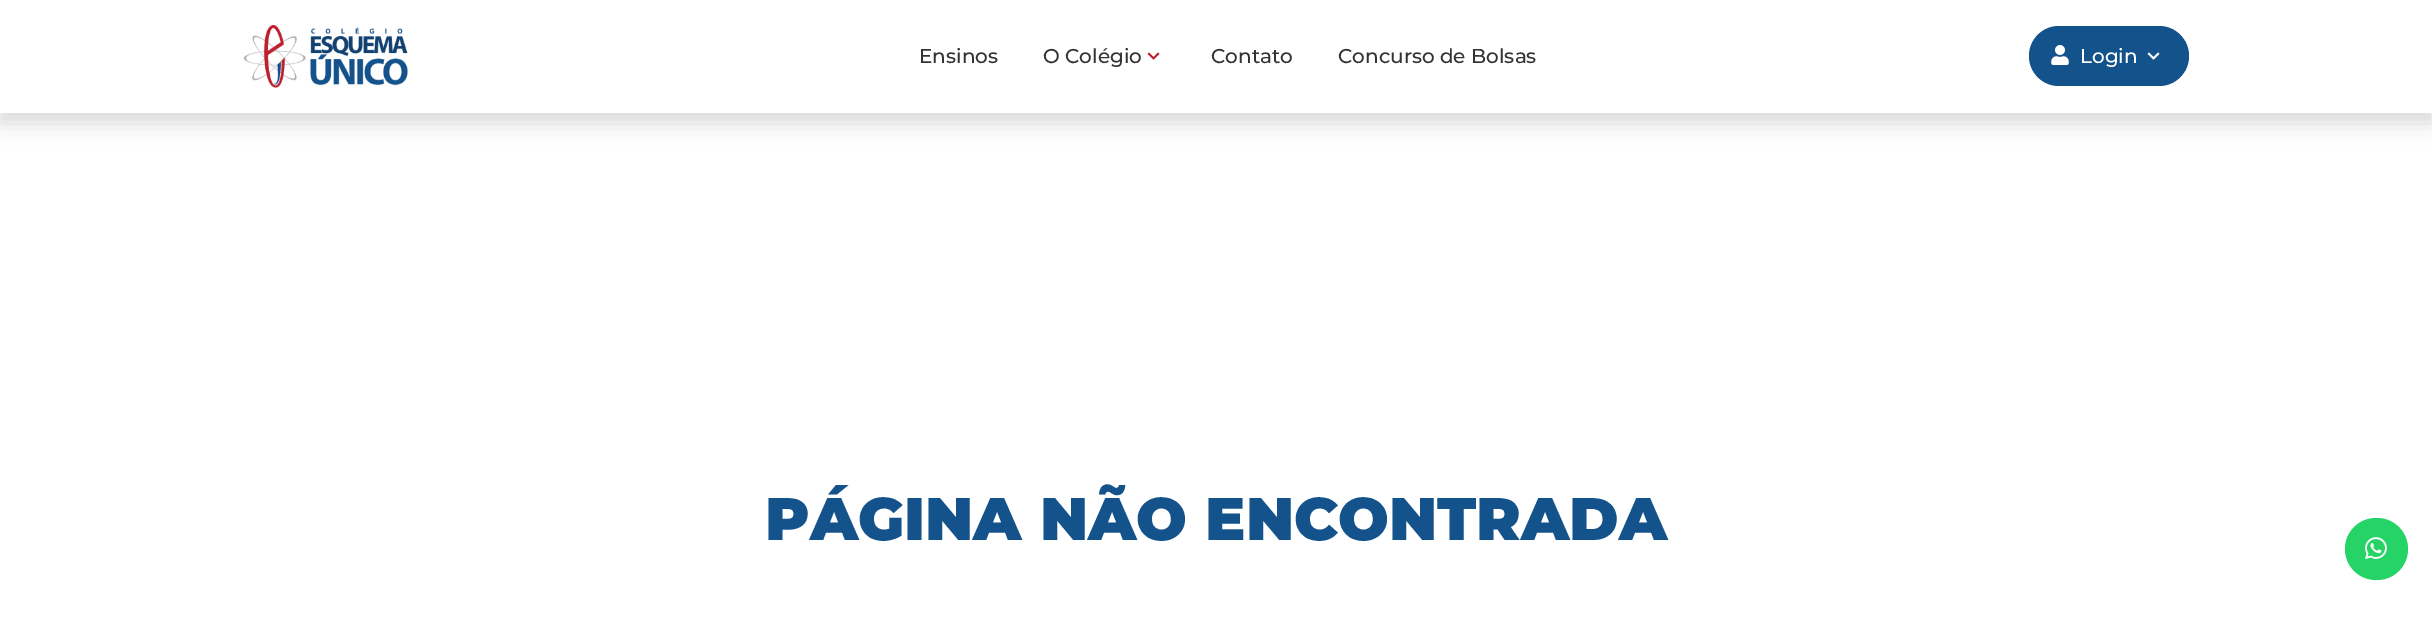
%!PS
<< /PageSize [2432 617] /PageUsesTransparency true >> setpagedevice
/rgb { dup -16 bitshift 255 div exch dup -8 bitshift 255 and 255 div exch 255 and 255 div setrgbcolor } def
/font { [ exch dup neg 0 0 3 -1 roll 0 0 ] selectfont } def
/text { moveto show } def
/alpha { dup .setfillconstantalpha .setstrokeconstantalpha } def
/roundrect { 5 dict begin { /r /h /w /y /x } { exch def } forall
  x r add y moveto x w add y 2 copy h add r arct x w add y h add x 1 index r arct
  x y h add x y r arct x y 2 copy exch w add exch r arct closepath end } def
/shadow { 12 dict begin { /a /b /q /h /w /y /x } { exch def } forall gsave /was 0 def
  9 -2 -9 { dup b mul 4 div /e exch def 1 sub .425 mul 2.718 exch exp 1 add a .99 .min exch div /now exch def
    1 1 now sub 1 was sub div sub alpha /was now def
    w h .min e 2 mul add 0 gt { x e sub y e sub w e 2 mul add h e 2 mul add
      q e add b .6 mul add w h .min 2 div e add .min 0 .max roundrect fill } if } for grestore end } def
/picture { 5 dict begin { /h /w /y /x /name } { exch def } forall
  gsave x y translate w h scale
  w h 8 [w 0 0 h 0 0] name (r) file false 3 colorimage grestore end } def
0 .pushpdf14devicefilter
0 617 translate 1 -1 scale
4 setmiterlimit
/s1 { /Montserrat-Medium 20 font 16#333333 rgb } def
/s2 { /Montserrat-Medium 20 font 16#FFFFFF rgb } def
/s3 { /Montserrat-Black 60 font 16#13528A rgb } def
16#FFFFFF rgb
0 0 2432 617 rectfill
16#000000 rgb
0 10 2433 113 0 10 0.15 shadow
16#FFFFFF rgb
0 0 2432 113 rectfill
(pic1.raw) 243 25 165 63 picture
s1
(Ensinos) 919 63 text
(O Colégio) 1043 63 text
(pic2.raw) 1147 52 13 8 picture
(Contato) 1211 63 text
(Concurso de Bolsas) 1338 63 text
16#13528A rgb
2029 26 160 60 30 roundrect fill
(pic3.raw) 2051 45 18 20 picture
s2
(Login) 2080 63 text
(pic4.raw) 2147 52 13 8 picture
s3
(PÁGINA NÃO ENCONTRADA) 765 540 text
16#25D366 rgb
2345 518 63 62 31 roundrect fill
(pic5.raw) 2365 537 22 22 picture
.poppdf14devicefilter showpage
